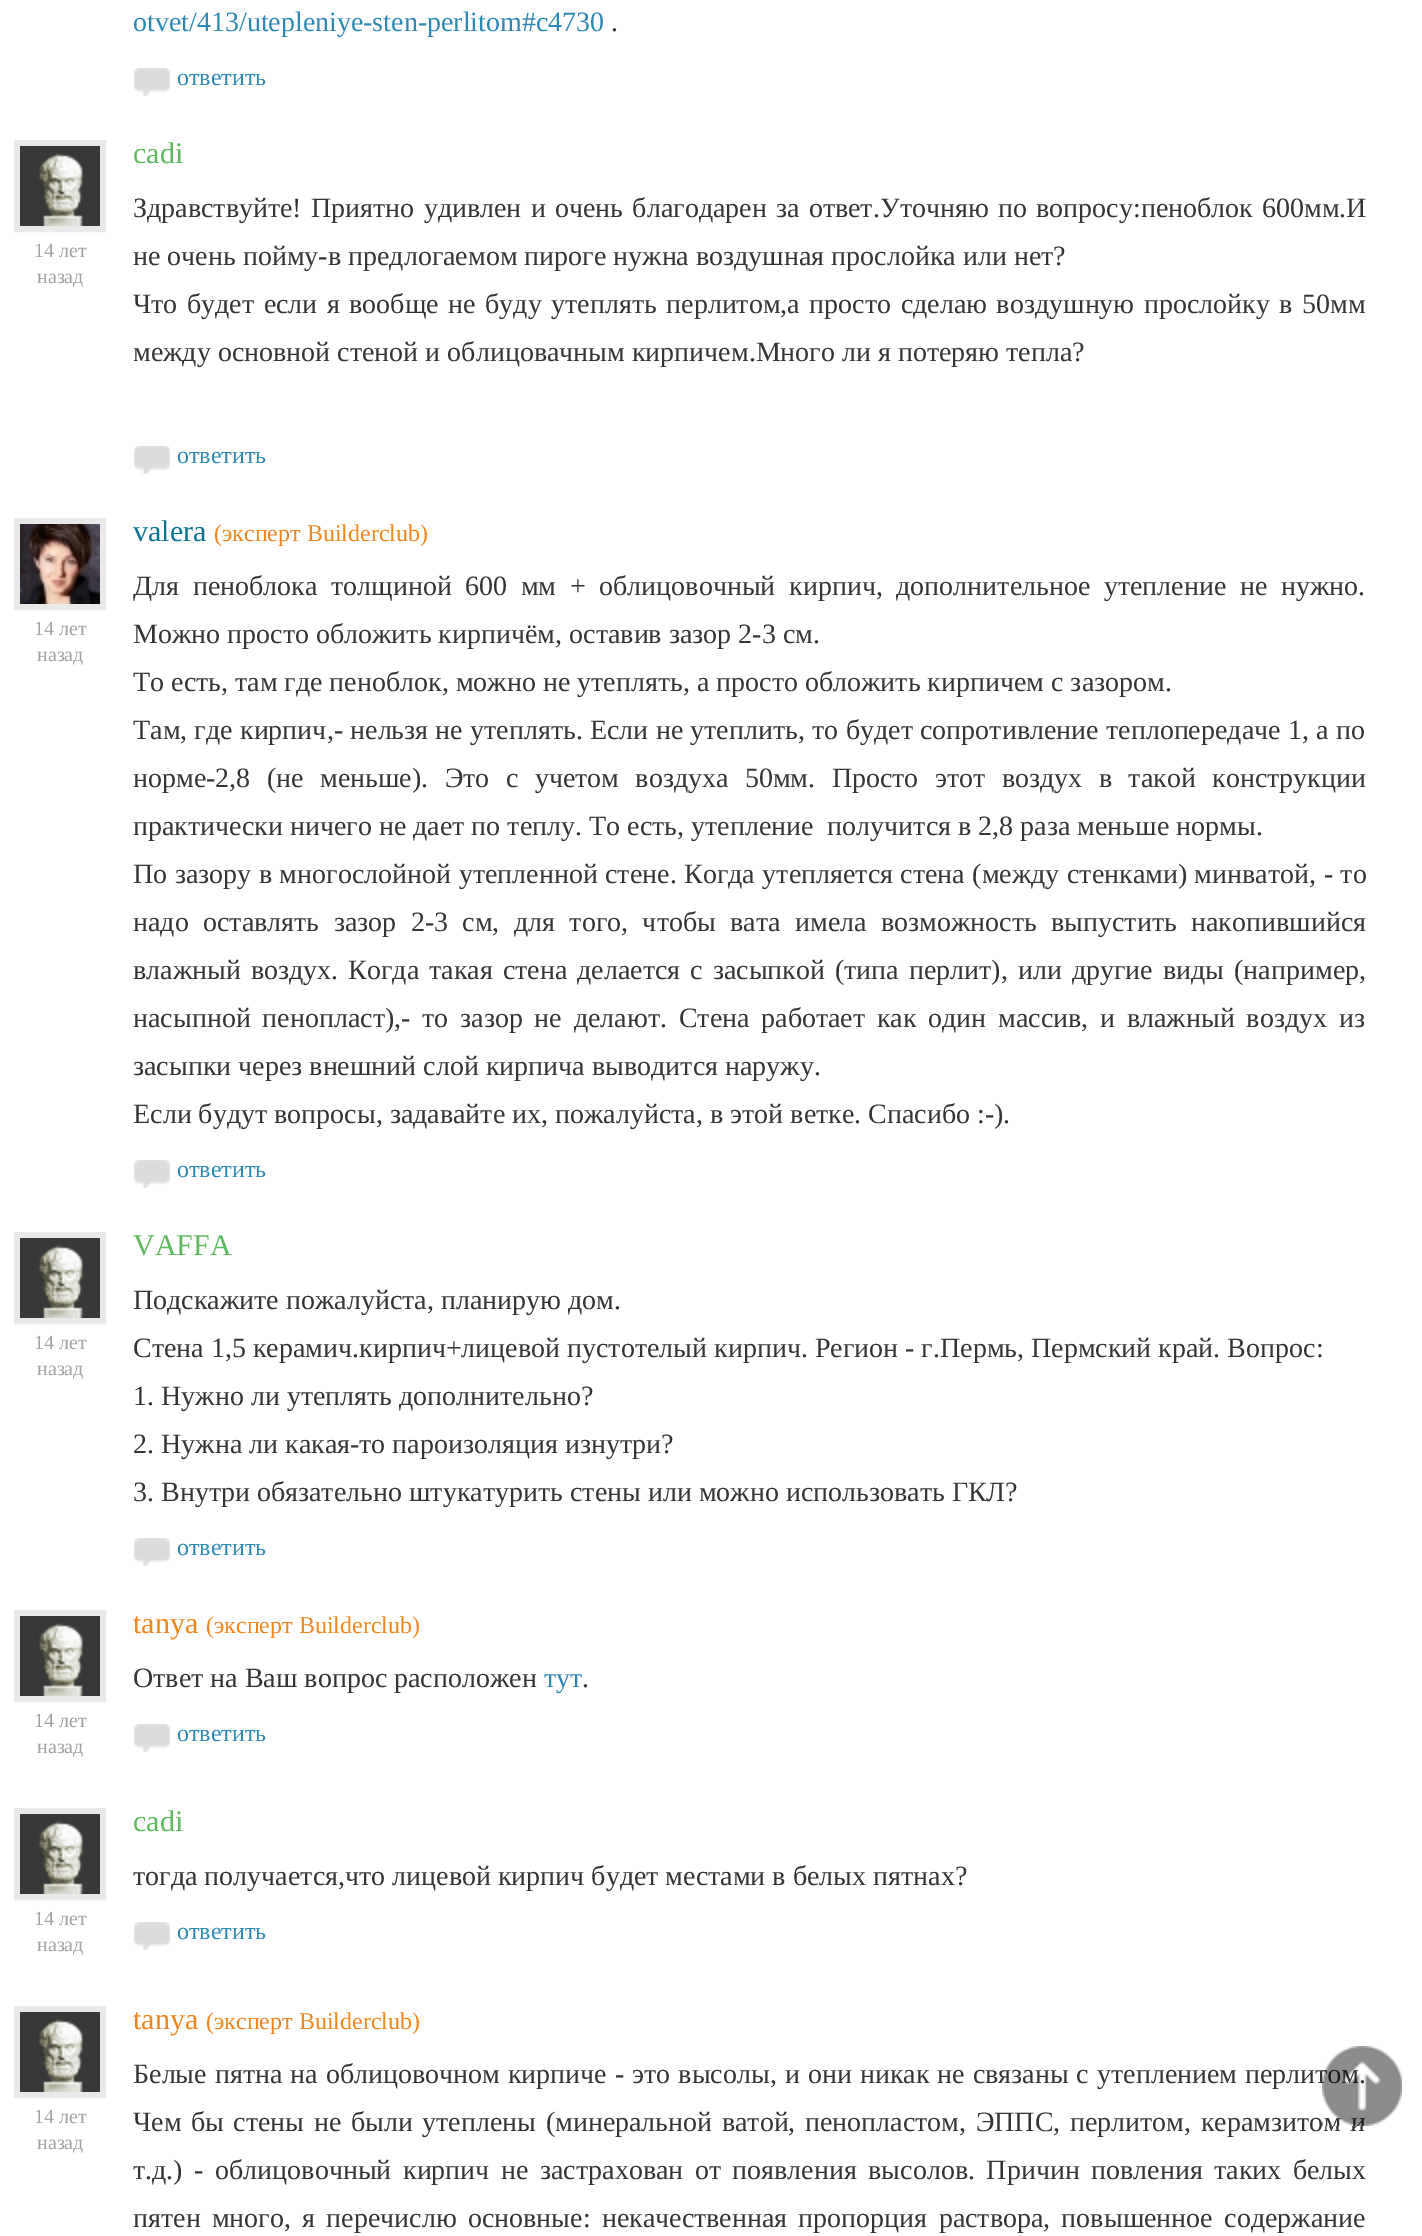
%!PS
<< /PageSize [1422 2236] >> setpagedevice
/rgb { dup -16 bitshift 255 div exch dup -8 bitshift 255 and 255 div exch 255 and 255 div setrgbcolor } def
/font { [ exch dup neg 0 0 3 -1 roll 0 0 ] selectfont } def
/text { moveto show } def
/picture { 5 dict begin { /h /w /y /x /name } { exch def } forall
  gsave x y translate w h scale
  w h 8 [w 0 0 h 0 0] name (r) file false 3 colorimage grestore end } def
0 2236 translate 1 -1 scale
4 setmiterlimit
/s1 { /LiberationSerif-Regular 28 font 16#2B89B4 rgb } def
/s2 { /LiberationSerif-Regular 28 font 16#343434 rgb } def
/s3 { /LiberationSerif-Regular 24 font 16#2B89B4 rgb } def
/s4 { /LiberationSerif-Regular 20 font 16#A2A2A2 rgb } def
/s5 { /LiberationSerif-Regular 30 font 16#5DBA5D rgb } def
/s6 { /LiberationSerif-Regular 30 font 16#097392 rgb } def
/s7 { /LiberationSerif-Regular 24 font 16#F0861E rgb } def
/s8 { /LiberationSerif-Regular 30 font 16#F0861E rgb } def
16#FFFFFF rgb
0 0 1422 2236 rectfill
s1
(otvet/413/utepleniye-sten-perlitom#c4730) 133 31 text
s2
(.) 611 31 text
(pic1.raw) 134 68 36 28 picture
s3
(ответить) 177 85 text
16#E9E9E9 rgb
6 setlinewidth
17 143 86 86 rectstroke
(pic2.raw) 20 146 80 80 picture
s4
(14 лет) 34 257 text
(назад) 37 283 text
s5
(cadi) 133 163 text
/LiberationSerif-Regular 28 font
16#343434 rgb
133 217 moveto 2.25 0 32 (Здравствуйте! Приятно удивлен и очень благодарен за ответ.Уточняю по вопросу:пеноблок 600мм.И) widthshow
(не очень пойму-в предлогаемом пироге нужна воздушная прослойка или нет?) 133 265 text
133 313 moveto 2.5 0 32 (Что будет если я вообще не буду утеплять перлитом,а просто сделаю воздушную прослойку в 50мм) widthshow
(между основной стеной и облицовачным кирпичем.Много ли я потеряю тепла?) 133 361 text
(pic1.raw) 134 446 36 28 picture
s3
(ответить) 177 463 text
16#E9E9E9 rgb
17 521 86 86 rectstroke
(pic3.raw) 20 524 80 80 picture
s4
(14 лет) 34 635 text
(назад) 37 661 text
s6
(valera) 133 541 text
s7
(\(эксперт Builderclub\)) 214 541 text
/LiberationSerif-Regular 28 font
16#343434 rgb
133 595 moveto 6.6 0 32 (Для пеноблока толщиной 600 мм + облицовочный кирпич, дополнительное утепление не нужно.) widthshow
(Можно просто обложить кирпичём, оставив зазор 2-3 см.) 133 643 text
(То есть, там где пеноблок, можно не утеплять, а просто обложить кирпичем с зазором.) 133 691 text
133 739 moveto 0.25 0 32 (Там, где кирпич,- нельзя не утеплять. Если не утеплить, то будет сопротивление теплопередаче 1, а по) widthshow
133 787 moveto 9.4 0 32 (норме-2,8 \(не меньше\). Это с учетом воздуха 50мм. Просто этот воздух в такой конструкции) widthshow
(практически ничего не дает по теплу. То есть, утепление  получится в 2,8 раза меньше нормы.) 133 835 text
133 883 moveto 0.5 0 32 (По зазору в многослойной утепленной стене. Когда утепляется стена \(между стенками\) минватой, - то) widthshow
133 931 moveto 7.4 0 32 (надо оставлять зазор 2-3 см, для того, чтобы вата имела возможность выпустить накопившийся) widthshow
133 979 moveto 3 0 32 (влажный воздух. Когда такая стена делается с засыпкой \(типа перлит\), или другие виды \(например,) widthshow
133 1027 moveto 4.75 0 32 (насыпной пенопласт\),- то зазор не делают. Стена работает как один массив, и влажный воздух из) widthshow
(засыпки через внешний слой кирпича выводится наружу.) 133 1075 text
(Если будут вопросы, задавайте их, пожалуйста, в этой ветке. Спасибо :-\).) 133 1123 text
(pic1.raw) 134 1160 36 28 picture
s3
(ответить) 177 1177 text
16#E9E9E9 rgb
17 1235 86 86 rectstroke
(pic2.raw) 20 1238 80 80 picture
s4
(14 лет) 34 1349 text
(назад) 37 1375 text
s5
(VAFFA) 133 1255 text
s2
(Подскажите пожалуйста, планирую дом.) 133 1309 text
(Стена 1,5 керамич.кирпич+лицевой пустотелый кирпич. Регион - г.Пермь, Пермский край. Вопрос:) 133 1357 text
(1. Нужно ли утеплять дополнительно?) 133 1405 text
(2. Нужна ли какая-то пароизоляция изнутри?) 133 1453 text
(3. Внутри обязательно штукатурить стены или можно использовать ГКЛ?) 133 1501 text
(pic1.raw) 134 1538 36 28 picture
s3
(ответить) 177 1555 text
16#E9E9E9 rgb
17 1613 86 86 rectstroke
(pic2.raw) 20 1616 80 80 picture
s4
(14 лет) 34 1727 text
(назад) 37 1753 text
s8
(tanya) 133 1633 text
s7
(\(эксперт Builderclub\)) 206 1633 text
s2
(Ответ на Ваш вопрос расположен) 133 1687 text
s1
(тут) 544 1687 text
s2
(.) 582 1687 text
(pic1.raw) 134 1724 36 28 picture
s3
(ответить) 177 1741 text
16#E9E9E9 rgb
17 1811 86 86 rectstroke
(pic2.raw) 20 1814 80 80 picture
s4
(14 лет) 34 1925 text
(назад) 37 1951 text
s5
(cadi) 133 1831 text
s2
(тогда получается,что лицевой кирпич будет местами в белых пятнах?) 133 1885 text
(pic1.raw) 134 1922 36 28 picture
s3
(ответить) 177 1939 text
16#E9E9E9 rgb
17 2009 86 86 rectstroke
(pic2.raw) 20 2012 80 80 picture
s4
(14 лет) 34 2123 text
(назад) 37 2149 text
s8
(tanya) 133 2029 text
s7
(\(эксперт Builderclub\)) 206 2029 text
/LiberationSerif-Regular 28 font
16#343434 rgb
133 2083 moveto 1 0 32 (Белые пятна на облицовочном кирпиче - это высолы, и они никак не связаны с утеплением перлитом.) widthshow
133 2131 moveto 2.5 0 32 (Чем бы стены не были утеплены \(минеральной ватой, пенопластом, ЭППС, перлитом, керамзитом и) widthshow
133 2179 moveto 4.5 0 32 (т.д.\) - облицовочный кирпич не застрахован от появления высолов. Причин повления таких белых) widthshow
133 2227 moveto 4.25 0 32 (пятен много, я перечислю основные: некачественная пропорция раствора, повышенное содержание) widthshow
(pic4.raw) 1322 2046 80 80 picture
showpage
